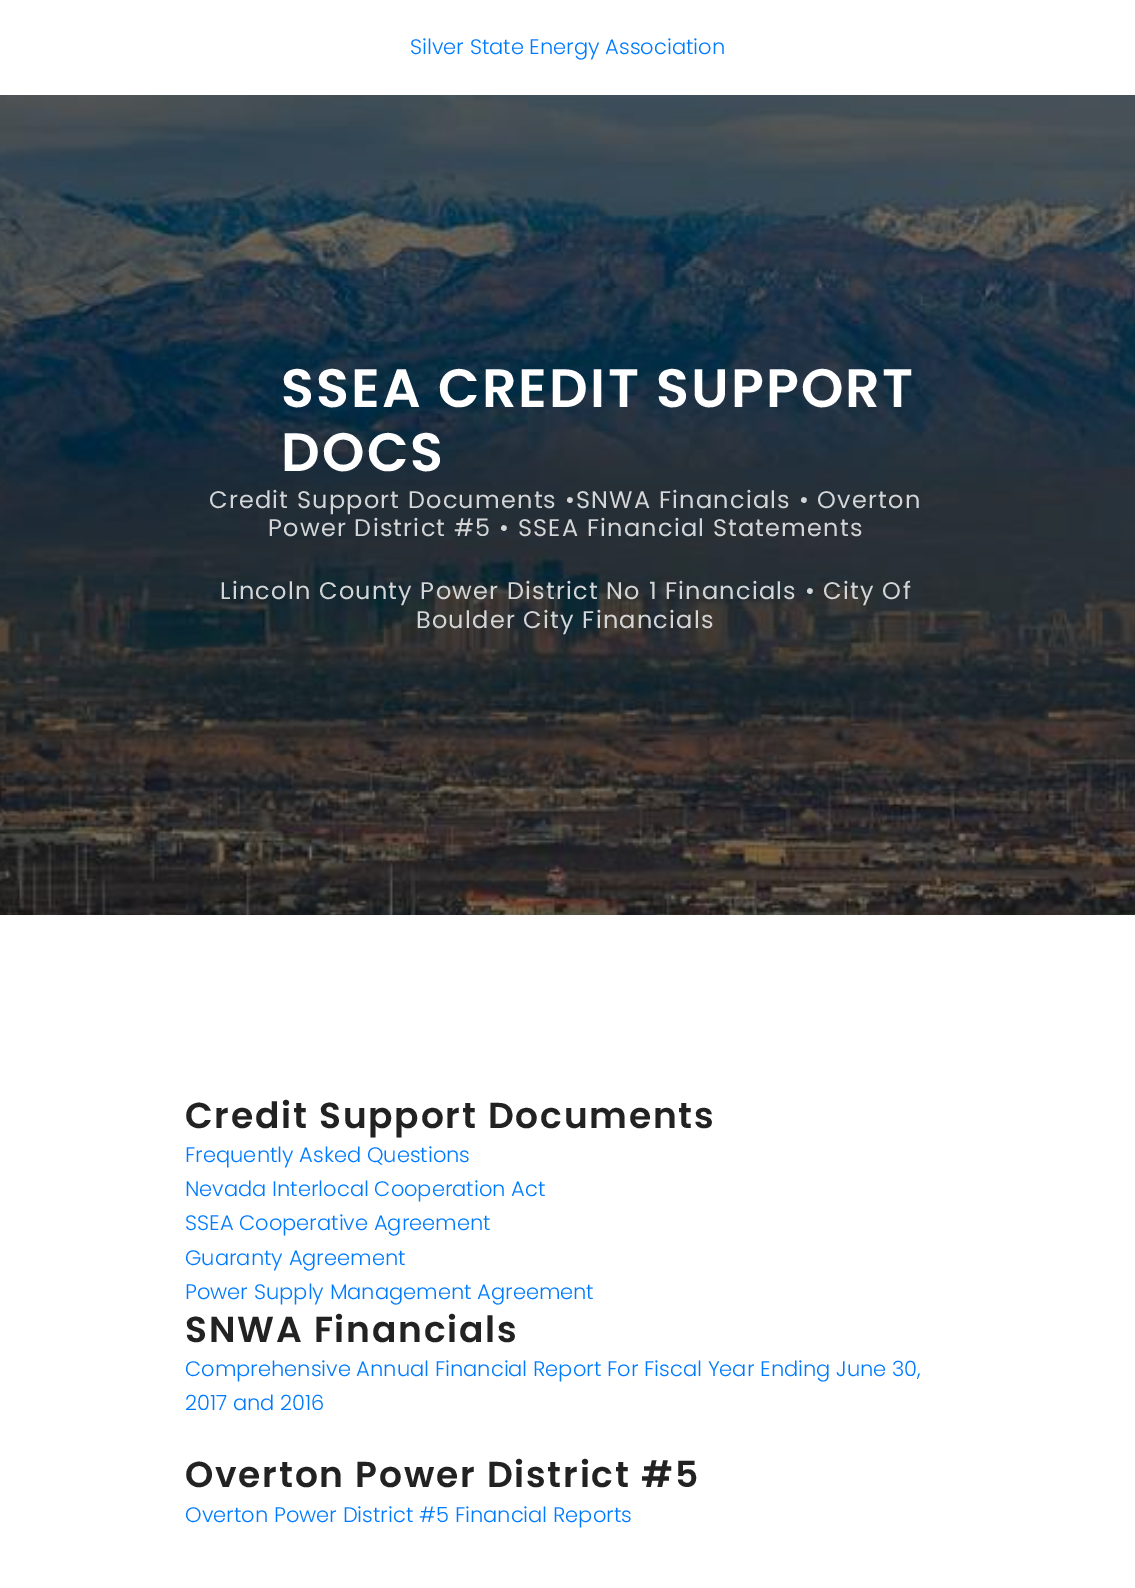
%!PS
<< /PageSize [1135 1588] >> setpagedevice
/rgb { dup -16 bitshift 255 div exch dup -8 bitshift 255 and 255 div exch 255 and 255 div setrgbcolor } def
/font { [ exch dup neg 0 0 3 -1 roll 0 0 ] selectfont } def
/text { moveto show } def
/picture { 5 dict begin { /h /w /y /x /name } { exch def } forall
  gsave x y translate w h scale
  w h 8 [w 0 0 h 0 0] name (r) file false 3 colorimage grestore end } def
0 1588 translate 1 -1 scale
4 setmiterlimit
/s1 { /Poppins-Light 21 font 16#007BFF rgb } def
16#FFFFFF rgb
0 0 1135 1588 rectfill
s1
(Silver State Energy Association) 410 54 text
(pic1.raw) 0 95 1135 820 picture
/Poppins-SemiBold 54 font
16#FFFFFF rgb
281 407 moveto 2.2 0 (SSEA CREDIT SUPPORT) ashow
281 471 moveto 2.2 0 (DOCS) ashow
/Poppins-Regular 24 font
16#D3D5D7 rgb
209 508 moveto 1.2 0 (Credit Support Documents •SNWA Financials • Overton) ashow
268 536 moveto 1.2 0 (Power District #5 • SSEA Financial Statements) ashow
220 599 moveto 1.2 0 (Lincoln County Power District No 1 Financials • City Of) ashow
416 628 moveto 1.2 0 (Boulder City Financials) ashow
/Poppins-SemiBold 36 font
16#222222 rgb
185 1128 moveto 1.8 0 (Credit Support Documents) ashow
s1
(Frequently Asked Questions) 185 1162 text
(Nevada Interlocal Cooperation Act) 185 1196 text
(SSEA Cooperative Agreement) 185 1230 text
(Guaranty Agreement) 185 1265 text
(Power Supply Management Agreement) 185 1299 text
/Poppins-SemiBold 36 font
16#222222 rgb
185 1342 moveto 1.8 0 (SNWA Financials) ashow
s1
(Comprehensive Annual Financial Report For Fiscal Year Ending June 30,) 185 1376 text
(2017 and 2016) 185 1410 text
/Poppins-SemiBold 36 font
16#222222 rgb
185 1487 moveto 1.8 0 (Overton Power District #5) ashow
s1
(Overton Power District #5 Financial Reports) 185 1522 text
showpage
